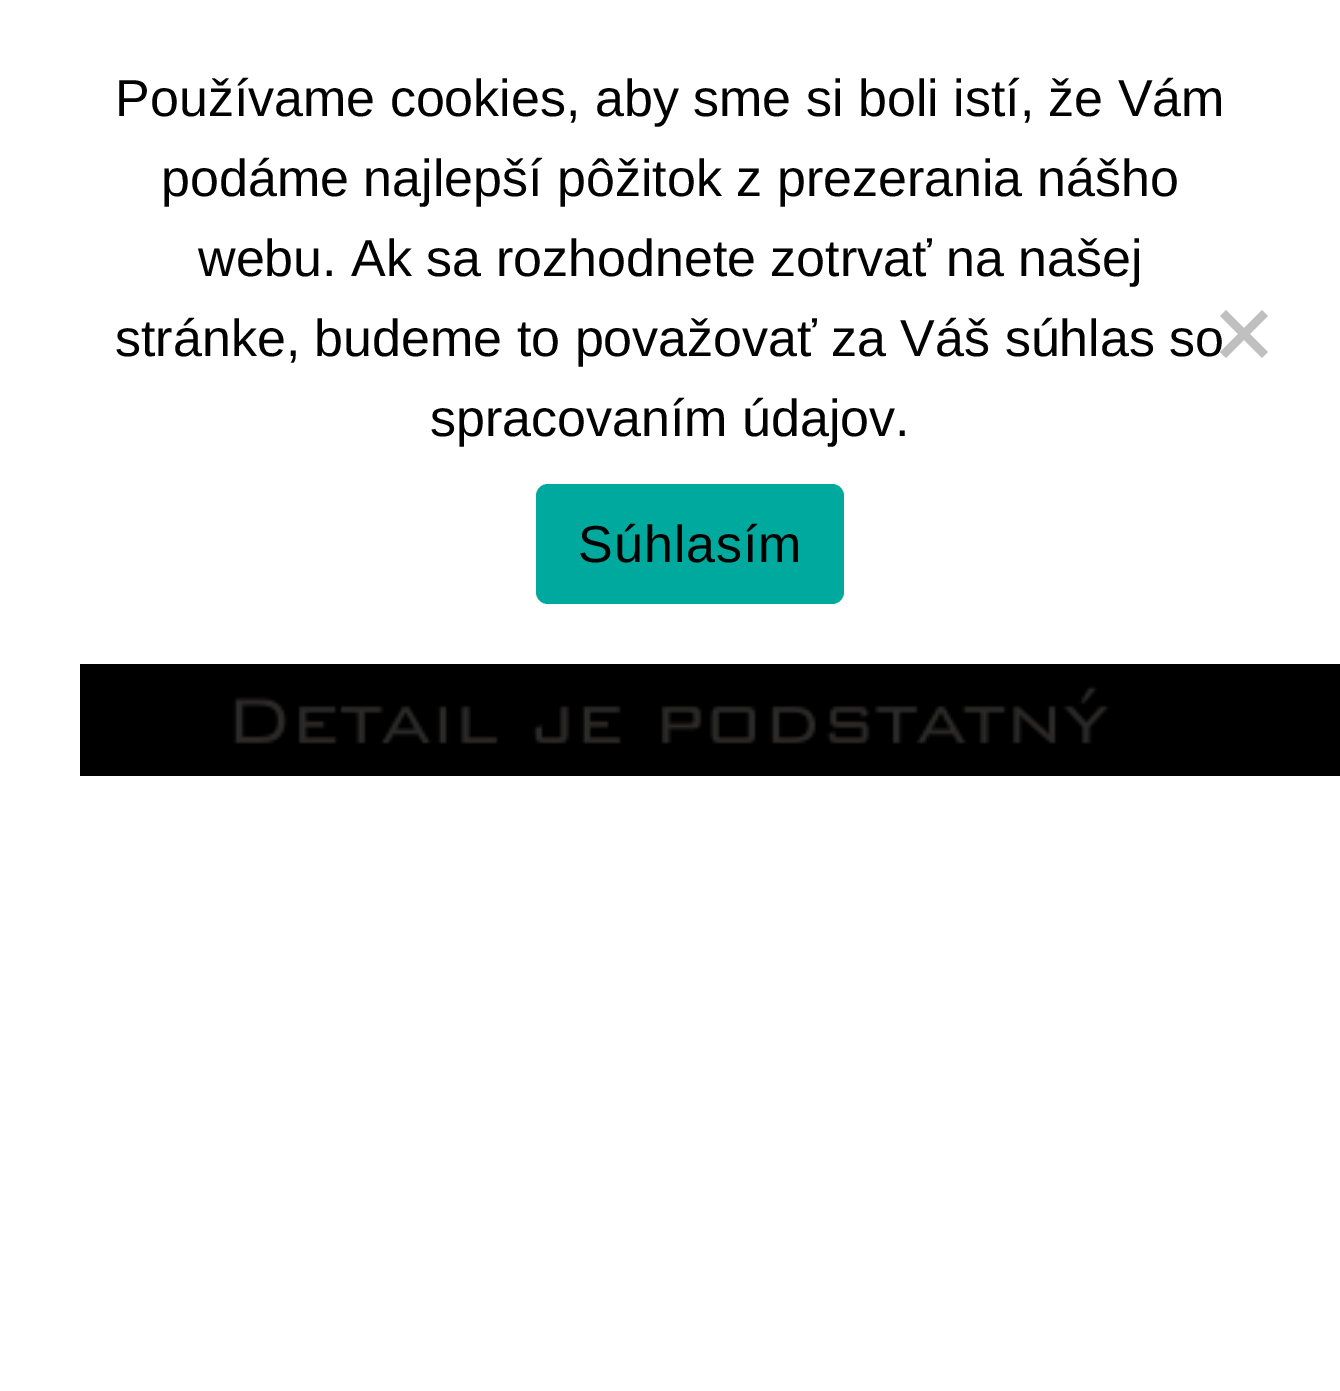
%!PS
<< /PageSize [1340 1391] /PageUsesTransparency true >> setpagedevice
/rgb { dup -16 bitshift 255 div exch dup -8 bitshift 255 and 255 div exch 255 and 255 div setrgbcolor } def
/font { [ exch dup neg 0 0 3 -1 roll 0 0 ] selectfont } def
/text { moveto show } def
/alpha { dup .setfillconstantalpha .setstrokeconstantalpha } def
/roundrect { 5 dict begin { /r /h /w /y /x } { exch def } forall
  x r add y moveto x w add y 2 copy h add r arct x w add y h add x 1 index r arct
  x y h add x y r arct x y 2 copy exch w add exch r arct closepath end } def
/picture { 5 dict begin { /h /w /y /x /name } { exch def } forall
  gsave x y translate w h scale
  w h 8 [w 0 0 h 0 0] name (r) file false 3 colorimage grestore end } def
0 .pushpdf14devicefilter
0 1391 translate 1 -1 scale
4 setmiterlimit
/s1 { /LiberationSans-Regular 52 font 16#020202 rgb } def
16#FFFFFF rgb
0 0 1340 1391 rectfill
s1
(Používame cookies, aby sme si boli istí, že Vám) 115 116 text
(podáme najlepší pôžitok z prezerania nášho) 161 196 text
(webu. Ak sa rozhodnete zotrvať na našej) 198 276 text
(stránke, budeme to považovať za Váš súhlas so) 115 356 text
(spracovaním údajov.) 430 436 text
0.5 alpha
16#808080 rgb
1262 310 moveto 1268 316 lineto 1226 358 lineto 1220 352 lineto closepath fill
1 alpha
16#C0C0C0 rgb
1220 316 moveto 1226 310 lineto 1268 352 lineto 1262 358 lineto closepath fill
16#00A99D rgb
536 484 308 120 12 roundrect fill
16#020202 rgb
578 562 moveto 1 0 (Súhlasím) ashow
(pic1.raw) 80 664 1260 112 picture
.poppdf14devicefilter showpage
